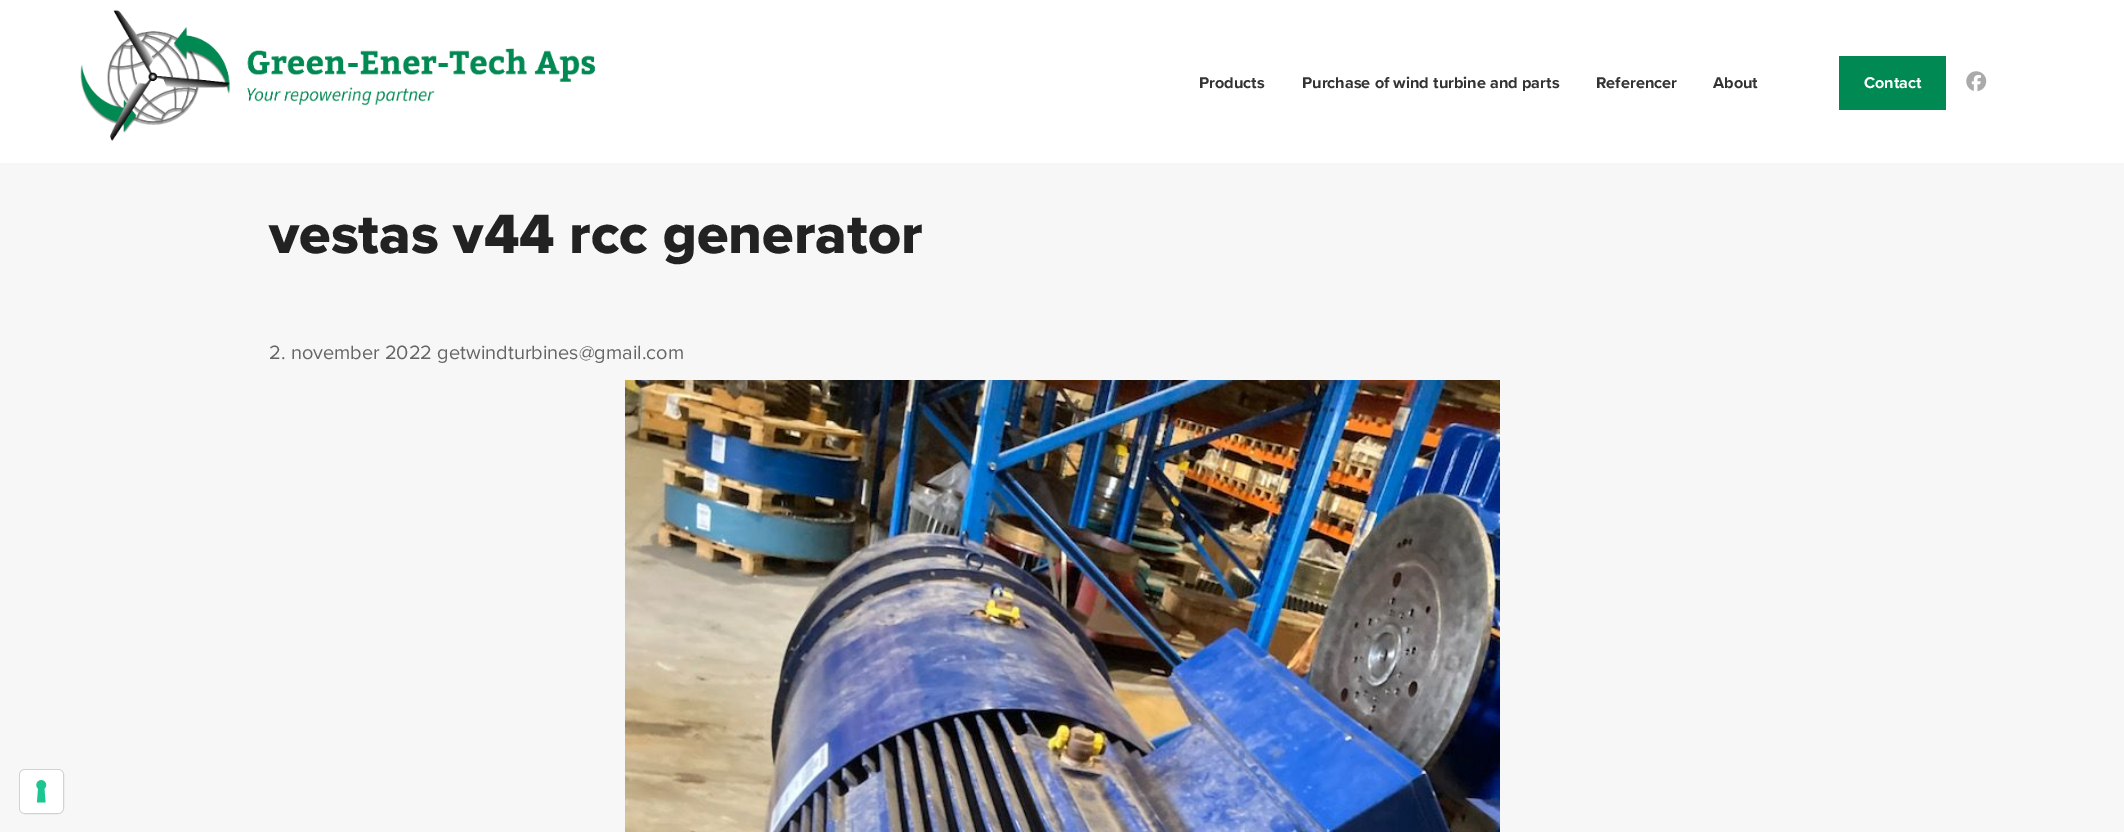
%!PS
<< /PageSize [2124 832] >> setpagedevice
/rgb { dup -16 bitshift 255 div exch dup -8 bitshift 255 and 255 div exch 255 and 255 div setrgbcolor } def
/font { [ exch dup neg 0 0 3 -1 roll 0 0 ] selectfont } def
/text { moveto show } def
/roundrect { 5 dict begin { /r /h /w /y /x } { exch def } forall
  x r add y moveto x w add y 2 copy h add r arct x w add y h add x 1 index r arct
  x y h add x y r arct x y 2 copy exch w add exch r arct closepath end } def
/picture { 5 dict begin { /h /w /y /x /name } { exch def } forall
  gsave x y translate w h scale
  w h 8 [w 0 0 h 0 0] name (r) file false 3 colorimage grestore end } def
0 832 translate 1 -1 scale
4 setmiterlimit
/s1 { /ProximaNova-Bold 16.25 font 16#333333 rgb } def
/s2 { /ProximaNova-Bold 16.25 font 16#FFFFFF rgb } def
/s3 { /ProximaNova-ExtraBold 57.5 font 16#222222 rgb } def
/s4 { /ProximaNova-Regular 20 font 16#666666 rgb } def
16#F7F7F7 rgb
0 0 2124 832 rectfill
16#FFFFFF rgb
0 0 2124 163 rectfill
(pic1.raw) 80 10 515 131 picture
s1
(Products) 1199 88 text
(Purchase of wind turbine and parts) 1302 88 text
(Referencer) 1596 88 text
(About) 1713 88 text
16#008953 rgb
1839 56 107 54 rectfill
s2
(Contact) 1864 88 text
(pic2.raw) 1966 71 21 21 picture
s3
(vestas v44 rcc generator) 269 253 text
s4
(2. november 2022 getwindturbines@gmail.com) 269 359 text
(pic3.raw) 625 380 875 452 picture
16#D2D2D2 rgb
19.5 769.5 44 44 5.5 roundrect stroke
16#FFFFFF rgb
20 770 43 43 5 roundrect fill
(pic4.raw) 36 780 11 23 picture
showpage
